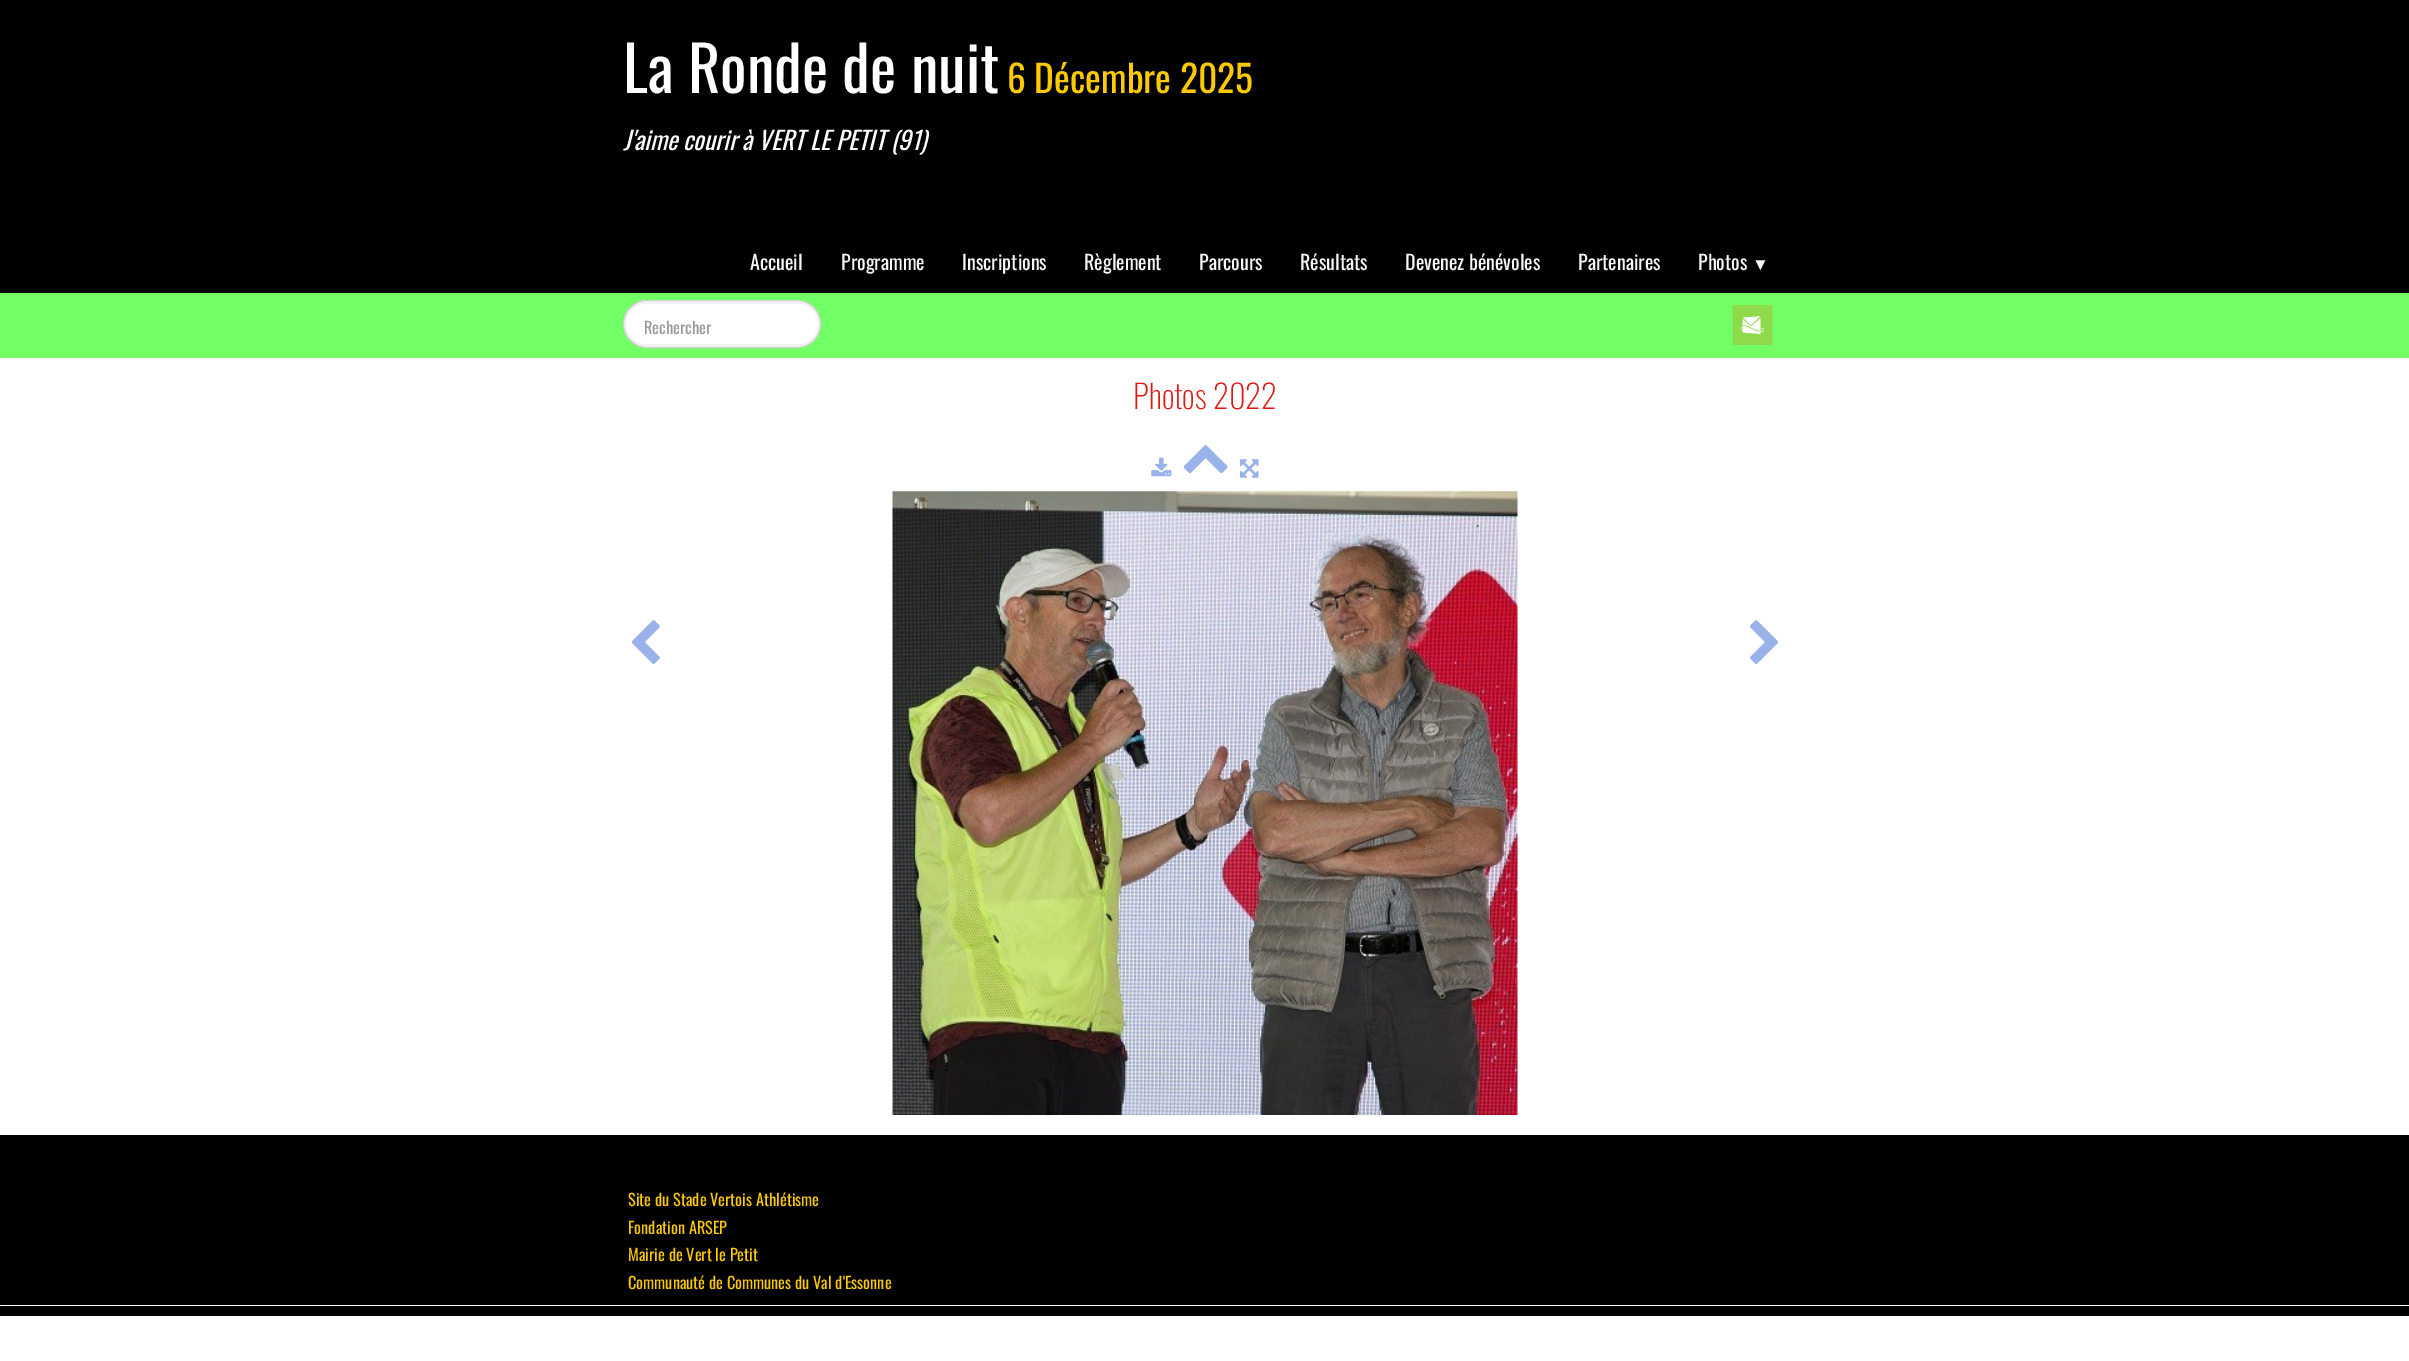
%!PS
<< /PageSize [2409 1361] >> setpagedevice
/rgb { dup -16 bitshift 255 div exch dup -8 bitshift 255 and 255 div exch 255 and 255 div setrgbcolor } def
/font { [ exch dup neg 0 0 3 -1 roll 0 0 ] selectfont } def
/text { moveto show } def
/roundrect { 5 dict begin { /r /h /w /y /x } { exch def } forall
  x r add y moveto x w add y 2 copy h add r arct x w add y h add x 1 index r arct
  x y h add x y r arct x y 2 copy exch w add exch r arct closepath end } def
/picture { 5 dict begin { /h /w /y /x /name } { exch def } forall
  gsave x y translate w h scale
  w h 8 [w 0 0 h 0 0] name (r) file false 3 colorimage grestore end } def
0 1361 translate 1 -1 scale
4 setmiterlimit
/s1 { /Oswald-Regular 62.5 font 16#FFFFFF rgb } def
/s2 { /Oswald-Regular 37.5 font 16#FCCA03 rgb } def
/s3 { /Oswald-Italic 25 font 16#FFFFFF rgb } def
/s4 { /Oswald-Regular 20 font 16#F7F7F7 rgb } def
/s5 { /LiberationSerif-Regular 17 font 16#F7F7F7 rgb } def
/s6 { /Oswald-Regular 16.25 font 16#999999 rgb } def
/s7 { /Oswald-ExtraLight 32.5 font 16#DE1912 rgb } def
/s8 { /Oswald-Regular 16.25 font 16#FCCA03 rgb } def
16#FFFFFF rgb
0 0 2409 1361 rectfill
16#000000 rgb
0 0 2409 293 rectfill
s1
(La Ronde de nuit) 623 93 text
s2
(6 Décembre 2025) 1007 93 text
s3
(J'aime courir à VERT LE PETIT \(91\)) 623 150 text
s4
(Accueil) 750 270 text
(Programme) 841 270 text
(Inscriptions) 962 270 text
(Règlement) 1084 270 text
(Parcours) 1199 270 text
(Résultats) 1300 270 text
(Devenez bénévoles) 1405 270 text
(Partenaires) 1578 270 text
(Photos) 1698 270 text
s5
(▼) 1752 270 text
16#73FF66 rgb
0 293 2409 65 rectfill
16#F2F2F2 rgb
623.5 300.5 197 47 23.5 roundrect gsave fill grestore
16#D1D1D1 rgb
stroke
16#FFFFFF rgb
626 304 192 40 20 roundrect fill
s6
(Rechercher) 644 334 text
(pic1.raw) 1732 305 41 40 picture
s7
(Photos 2022) 1133 409 text
(pic2.raw) 1151 457 21 20 picture
(pic3.raw) 1183 445 45 29 picture
(pic4.raw) 1240 459 19 19 picture
(pic5.raw) 631 620 29 44 picture
(pic6.raw) 892 491 626 624 picture
(pic7.raw) 1750 620 29 44 picture
16#000000 rgb
0 1135 2409 181 rectfill
s8
(Site du Stade Vertois Athlétisme) 628 1206 text
(Fondation ARSEP) 628 1234 text
(Mairie de Vert le Petit) 628 1261 text
(Communauté de Communes du Val d'Essonne) 628 1289 text
16#FFFFFF rgb
0 1305 2409 1 rectfill
showpage
